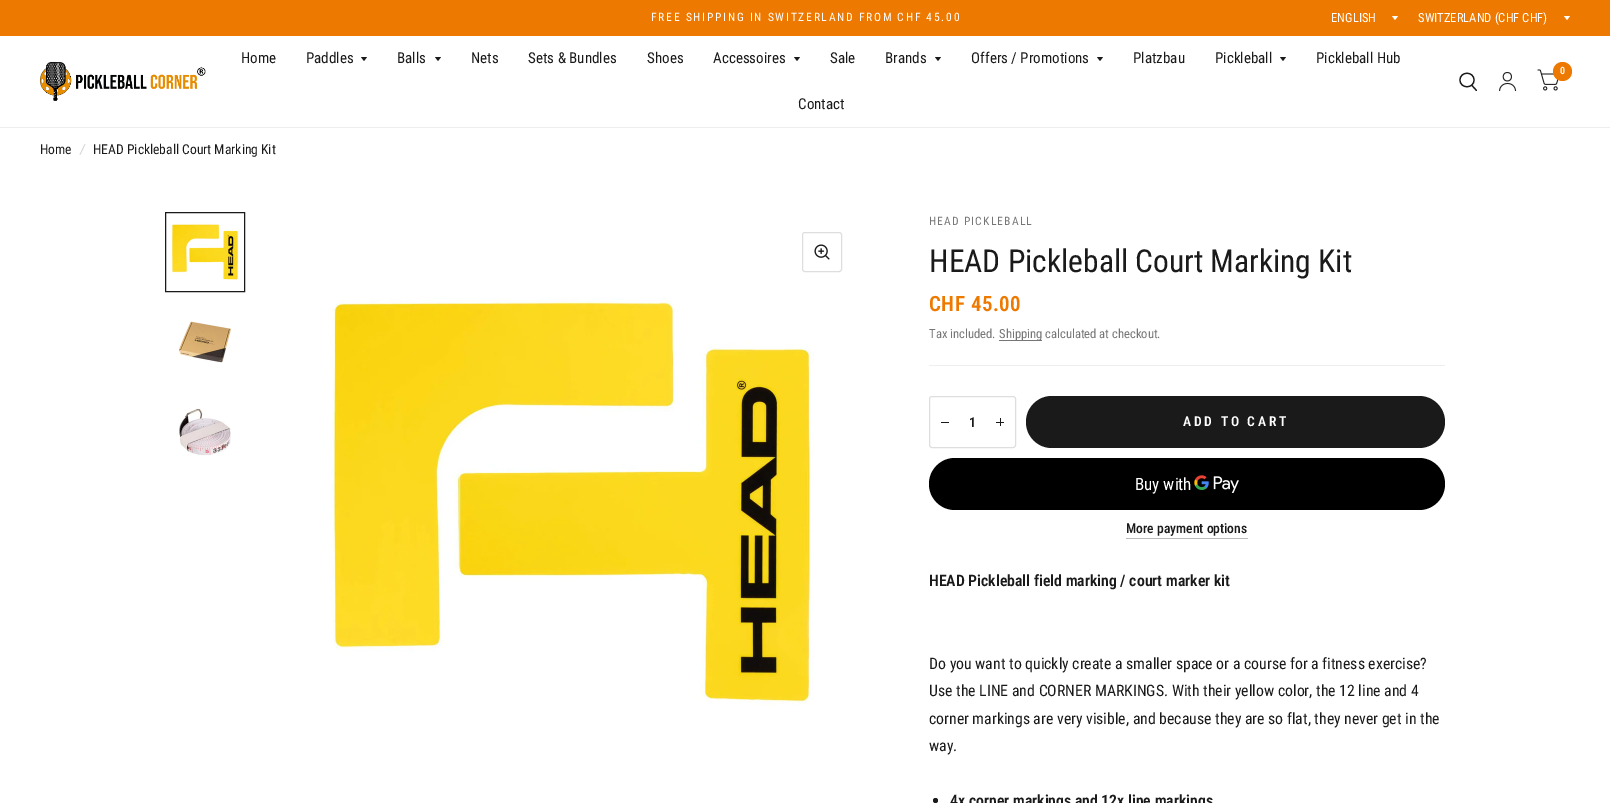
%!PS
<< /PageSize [1610 803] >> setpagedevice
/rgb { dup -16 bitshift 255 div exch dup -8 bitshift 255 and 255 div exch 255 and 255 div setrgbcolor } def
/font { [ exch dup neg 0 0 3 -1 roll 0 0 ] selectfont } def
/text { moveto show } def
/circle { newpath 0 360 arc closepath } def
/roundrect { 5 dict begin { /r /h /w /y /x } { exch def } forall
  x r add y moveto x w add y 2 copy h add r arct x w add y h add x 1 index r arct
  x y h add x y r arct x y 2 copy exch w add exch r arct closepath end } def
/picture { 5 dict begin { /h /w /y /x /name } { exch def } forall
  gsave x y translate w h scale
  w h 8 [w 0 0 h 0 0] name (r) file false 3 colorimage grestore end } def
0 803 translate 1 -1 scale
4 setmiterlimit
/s1 { /RobotoCondensed-Regular 12.6 font 16#FFFFFF rgb } def
/s2 { /RobotoCondensed-Regular 15 font 16#1A1A1A rgb } def
/s3 { /RobotoCondensed-SemiBold 10 font 16#FFFFFF rgb } def
/s4 { /RobotoCondensed-Regular 13.6 font 16#1A1A1A rgb } def
/s5 { /RobotoCondensed-Italic 13.6 font 16#D1D1D1 rgb } def
/s6 { /RobotoCondensed-Regular 31.5 font 16#1A1A1A rgb } def
/s7 { /RobotoCondensed-Regular 12.6 font 16#767676 rgb } def
/s8 { /RobotoCondensed-SemiBold 13.6 font 16#1A1A1A rgb } def
/s9 { /RobotoCondensed-Regular 17 font 16#FFFFFF rgb } def
/s10 { /RobotoCondensed-Medium 13.6 font 16#1A1A1A rgb } def
/s11 { /RobotoCondensed-SemiBold 15.75 font 16#1A1A1A rgb } def
/s12 { /RobotoCondensed-Regular 15.75 font 16#1A1A1A rgb } def
16#FFFFFF rgb
0 0 1610 803 rectfill
16#EE7900 rgb
0 0 1610 36 rectfill
/RobotoCondensed-Regular 11.55 font
16#FFFFFF rgb
651 21 moveto 1.75 0 (FREE SHIPPING IN SWITZERLAND FROM CHF 45.00) ashow
s1
(ENGLISH) 1331 22 text
1392 16 moveto 1398 16 lineto 1395 20 lineto closepath fill
(SWITZERLAND \(CHF CHF\)) 1418 22 text
1564 16 moveto 1570 16 lineto 1567 20 lineto closepath fill
16#EEEEEE rgb
0 127 1610 1 rectfill
(pic1.raw) 40 61 166 40 picture
s2
(Home) 241 63 text
(Paddles) 306 63 text
361 57 moveto 367 57 lineto 364 61 lineto closepath fill
(Balls) 397 63 text
435 57 moveto 441 57 lineto 438 61 lineto closepath fill
(Nets) 471 63 text
(Sets & Bundles) 528 63 text
(Shoes) 647 63 text
(Accessoires) 713 63 text
794 57 moveto 800 57 lineto 797 61 lineto closepath fill
(Sale) 830 63 text
(Brands) 885 63 text
935 57 moveto 941 57 lineto 938 61 lineto closepath fill
(Offers / Promotions) 971 63 text
1097 57 moveto 1103 57 lineto 1100 61 lineto closepath fill
(Platzbau) 1133 63 text
(Pickleball) 1215 63 text
1280 57 moveto 1286 57 lineto 1283 61 lineto closepath fill
(Pickleball Hub) 1316 63 text
(Contact) 798 109 text
1.2 setlinewidth
1 setlinecap
1 setlinejoin
1472 85.5 moveto 1476.5 90.5 lineto 1474 80 moveto 1474 89 1460 89 1460 80 curveto 1460 71 1474 71 1474 80 curveto closepath stroke
(pic2.raw) 1499 71 18 21 picture
(pic3.raw) 1537 69 22 22 picture
16#EE7900 rgb
1562.5 71.5 9.5 circle fill
s3
(0) 1560 74 text
s4
(Home) 40 154 text
s5
(/) 80 154 text
s4
(HEAD Pickleball Court Marking Kit) 93 154 text
(pic4.raw) 171 223 68 57 picture
1 setlinewidth
0 setlinecap
0 setlinejoin
165.5 212.5 79 79 rectstroke
(pic5.raw) 178 321 54 42 picture
(pic6.raw) 179 408 52 48 picture
16#DEDEDE rgb
802.5 232.5 39 39 2.5 roundrect stroke
(pic7.raw) 814 244 16 16 picture
(pic8.raw) 330 297 484 409 picture
/RobotoCondensed-Regular 11.55 font
16#767676 rgb
929 225 moveto 1.2 0 (HEAD PICKLEBALL) ashow
16#EEEEEE rgb
929 365 516 1 rectfill
s6
(HEAD Pickleball Court Marking Kit) 929 272 text
/RobotoCondensed-SemiBold 21 font
16#EE7900 rgb
929 311 moveto 0.5 0 (CHF 45.00) ashow
s7
(Tax included.) 929 338 text
999 340 43 1 rectfill
(Shipping calculated at checkout.) 999 338 text
16#DEDEDE rgb
929.5 396.5 86 51 2.5 roundrect stroke
16#1A1A1A rgb
941 422 8 1 rectfill
s8
(1) 969 427 text
1000 418 1 8 rectfill
996 422 8 1 rectfill
1026 396 419 52 26 roundrect fill
16#FFFFFF rgb
1183 426 moveto 2.75 0 (ADD TO CART) ashow
16#000000 rgb
929 458 516 52 26 roundrect fill
s9
(Buy with) 1135 490 text
(pic9.raw) 1194 475 45 18 picture
s10
(More payment options) 1126 533 text
16#BABABA rgb
1126 538 122 1 rectfill
s11
(HEAD Pickleball field marking / court marker kit) 929 586 text
s12
(Do you want to quickly create a smaller space or a course for a fitness exercise?) 929 669 text
(Use the LINE and CORNER MARKINGS. With their yellow color, the 12 line and 4) 929 696 text
(corner markings are very visible, and because they are so flat, they never get in the) 929 724 text
(way.) 929 751 text
935.5 800.5 2.5 circle fill
s11
(4x corner markings and 12x line markings) 950 806 text
showpage
